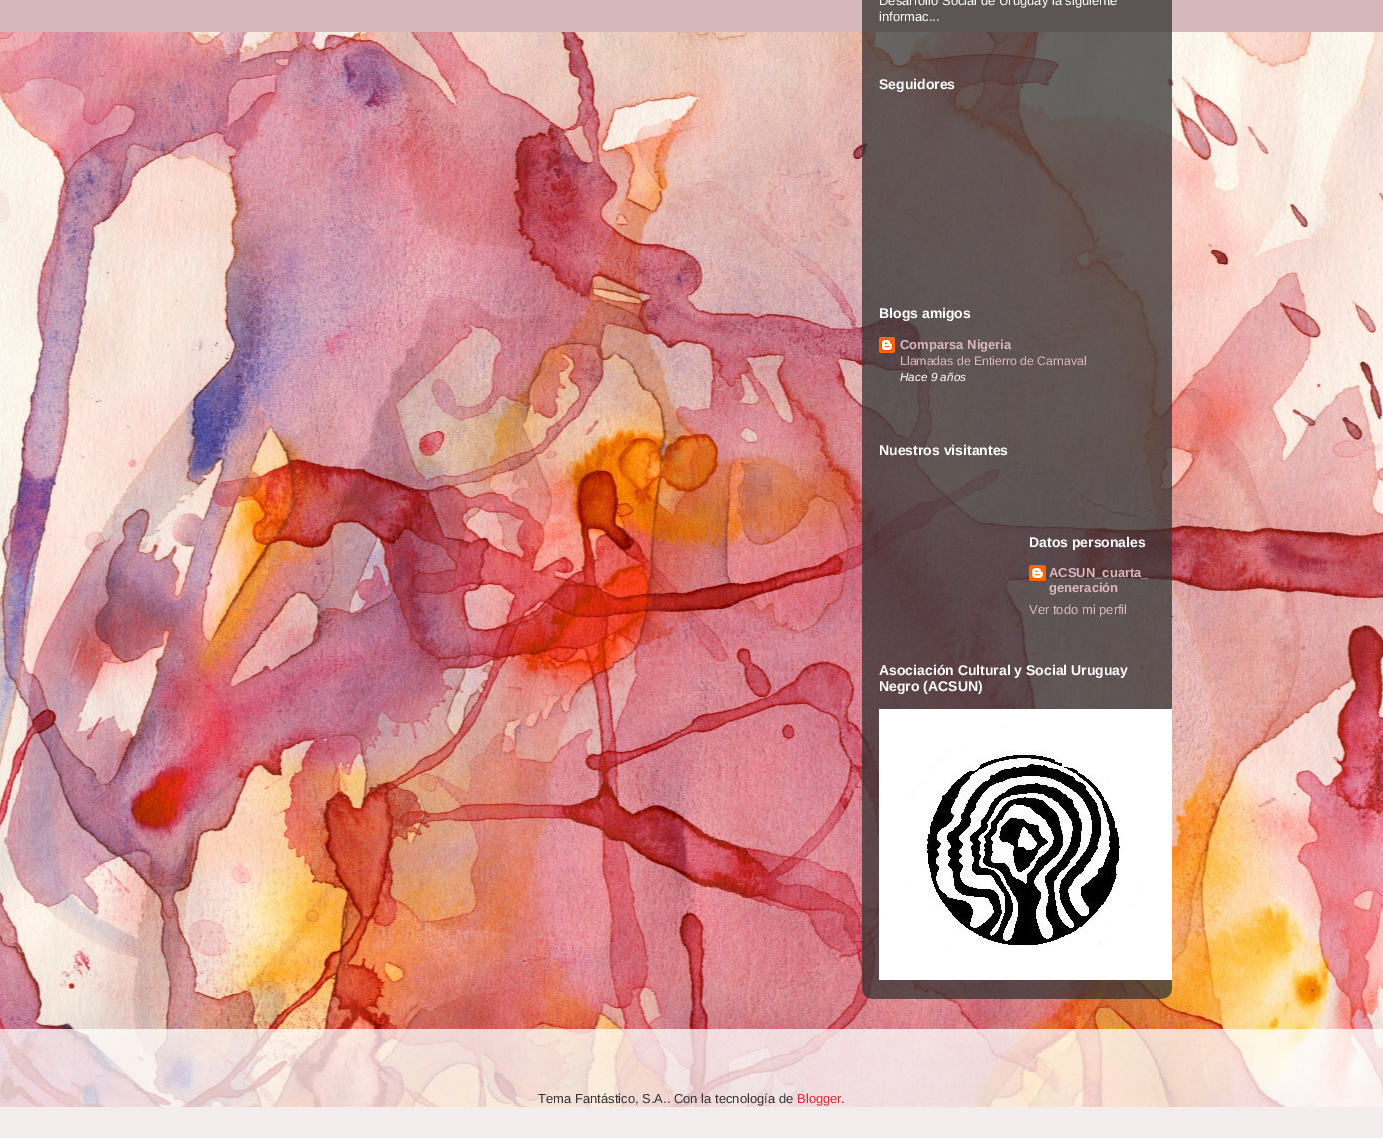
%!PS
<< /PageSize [1383 1138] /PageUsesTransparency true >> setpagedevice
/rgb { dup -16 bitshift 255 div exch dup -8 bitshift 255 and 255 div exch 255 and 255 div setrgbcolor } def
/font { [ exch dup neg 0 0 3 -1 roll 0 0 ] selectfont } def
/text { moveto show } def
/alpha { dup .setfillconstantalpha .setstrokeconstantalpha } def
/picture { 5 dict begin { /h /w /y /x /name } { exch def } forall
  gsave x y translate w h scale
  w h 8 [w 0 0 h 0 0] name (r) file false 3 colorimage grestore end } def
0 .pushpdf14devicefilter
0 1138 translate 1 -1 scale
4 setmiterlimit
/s1 { /LiberationSans-Regular 13 font 16#FFFFFF rgb } def
/s2 { /LiberationSans-Bold 14 font 16#FFFFFF rgb } def
/s3 { /LiberationSans-Bold 13 font 16#DAB7BC rgb } def
/s4 { /LiberationSans-Regular 12.3 font 16#DAB7BC rgb } def
/s5 { /LiberationSans-Italic 11.75 font 16#FFFFFF rgb } def
/s6 { /LiberationSans-Regular 13 font 16#DAB7BC rgb } def
/s7 { /LiberationSans-Regular 13 font 16#333333 rgb } def
/s8 { /LiberationSans-Regular 13 font 16#D52A33 rgb } def
16#D5B7BC rgb
0 0 1383 1138 rectfill
(pic1.raw) 0 32 1383 1075 picture
(pic2.raw) 862 0 310 999 picture
s1
(Desarrollo Social de Uruguay la siguiente) 879 5 text
(informac...) 879 21 text
s2
(Seguidores) 879 89 text
(Blogs amigos) 879 318 text
(pic3.raw) 879 337 16 16 picture
s3
(Comparsa Nigeria) 900 349 text
s4
(Llamadas de Entierro de Carnaval) 900 365 text
s5
(Hace 9 años) 900 381 text
s2
(Nuestros visitantes) 879 455 text
(Datos personales) 1029 547 text
(pic4.raw) 1029 565 17 16 picture
s3
(ACSUN_cuarta_) 1049 577 text
(generación) 1049 592 text
s6
(Ver todo mi perfil) 1029 614 text
s2
(Asociación Cultural y Social Uruguay) 879 675 text
(Negro \(ACSUN\)) 879 691 text
(pic5.raw) 879 709 293 271 picture
0.75 alpha
0 1029 1383 109 rectfill
1 alpha
s7
(Tema Fantástico, S.A.. Con la tecnología de) 538 1103 text
s8
(Blogger) 797 1103 text
s7
(.) 841 1103 text
.poppdf14devicefilter showpage
